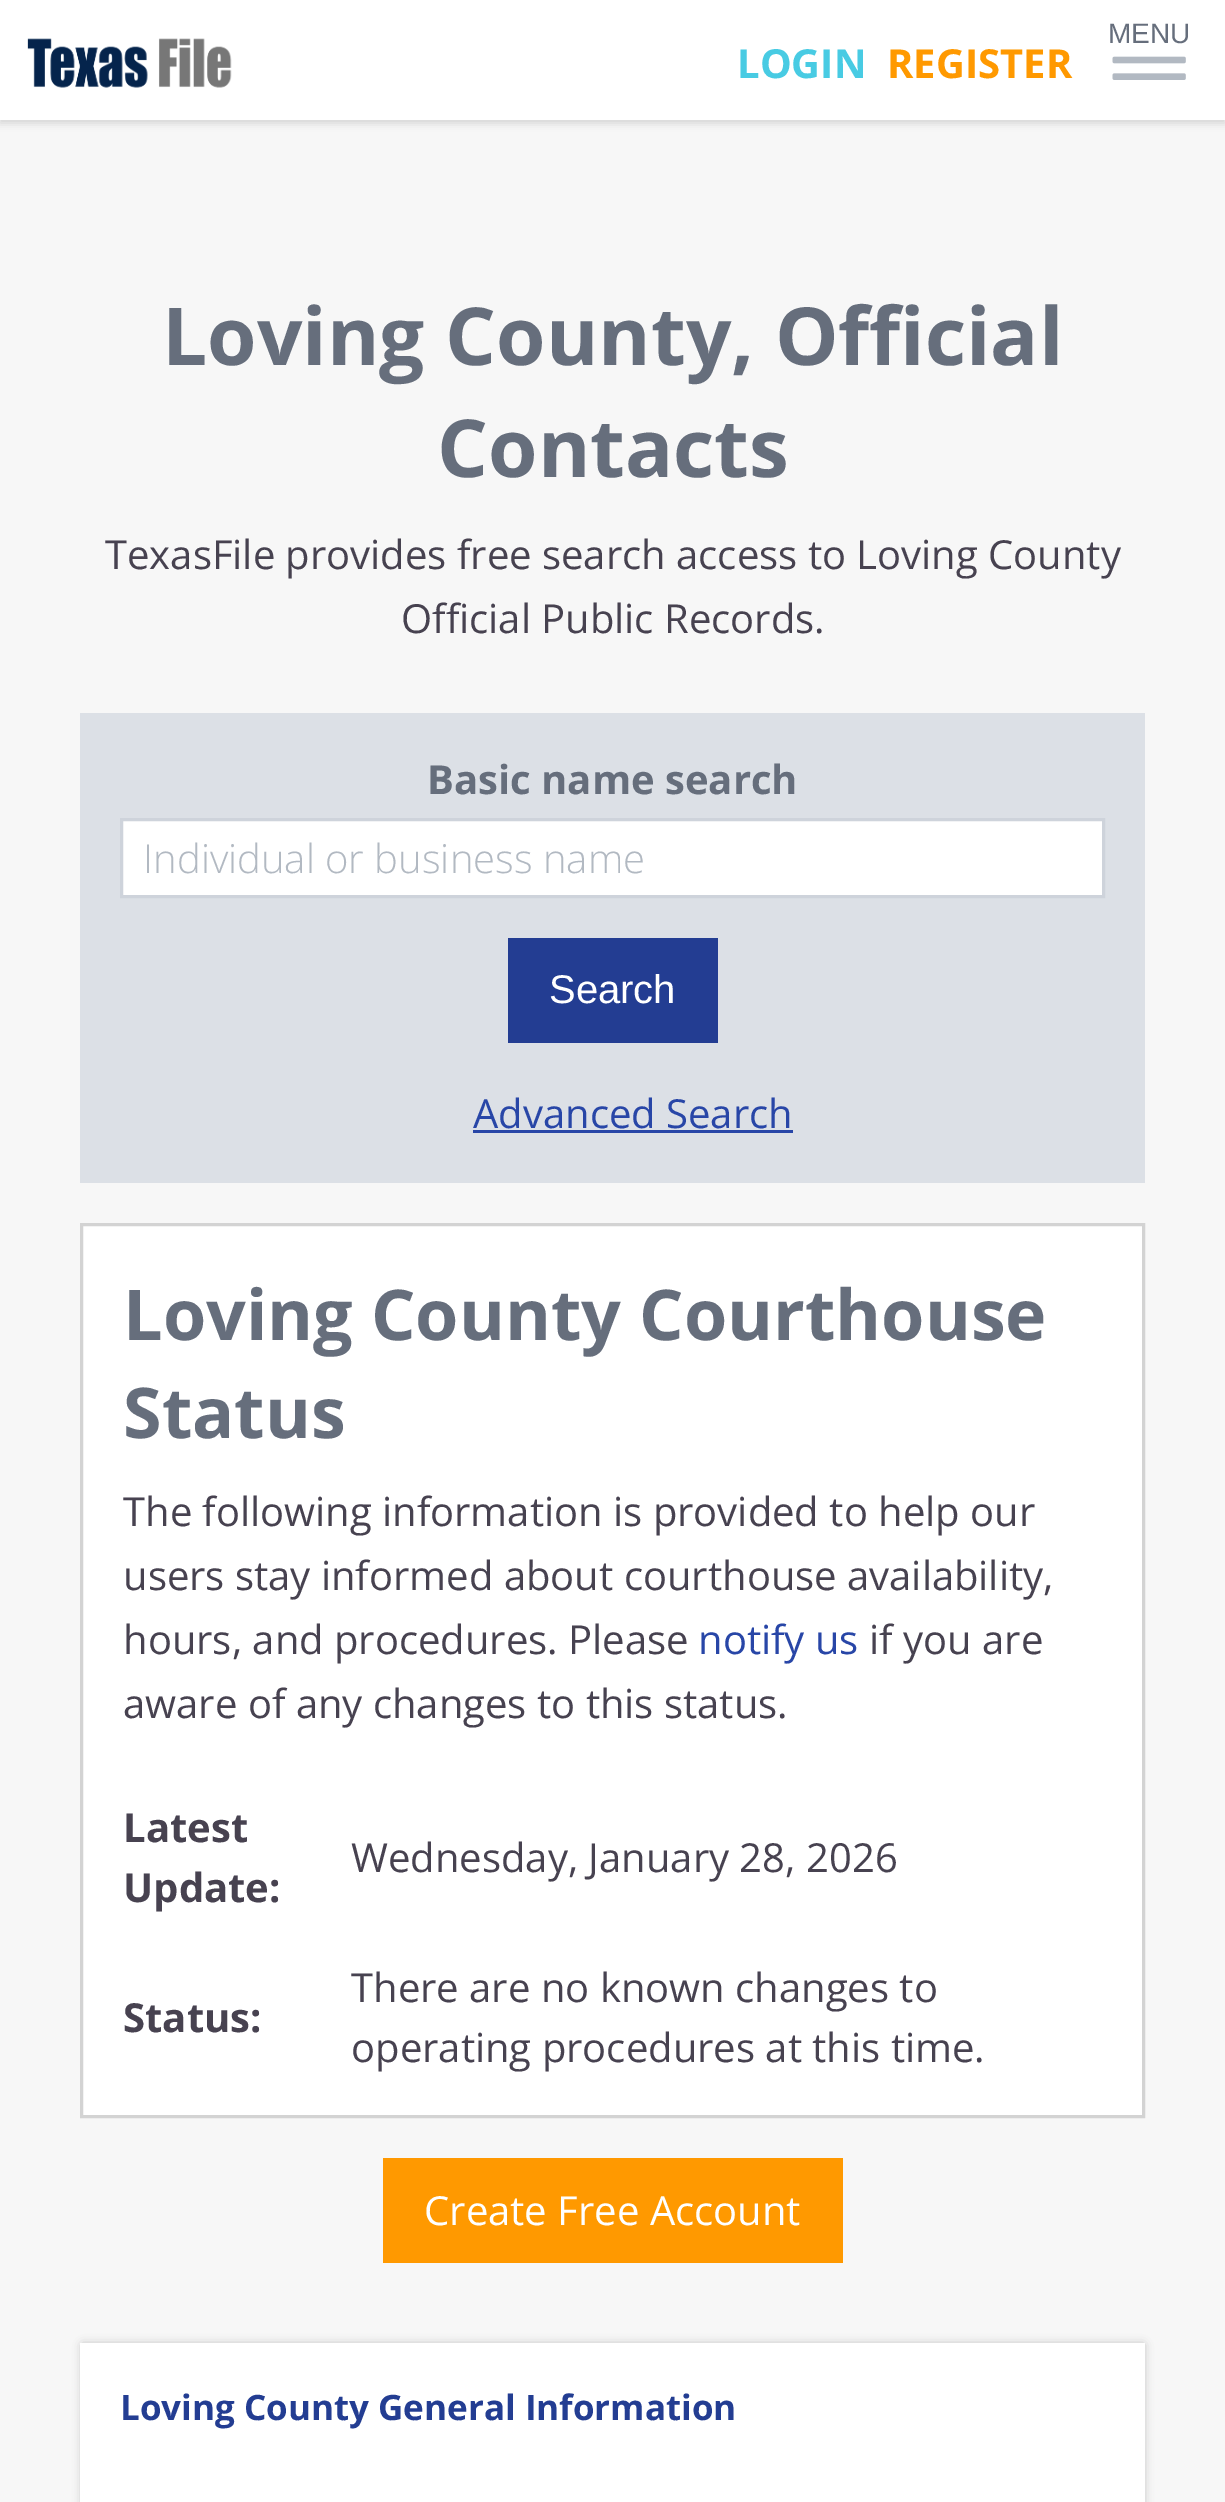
%!PS
<< /PageSize [1225 2502] /PageUsesTransparency true >> setpagedevice
/rgb { dup -16 bitshift 255 div exch dup -8 bitshift 255 and 255 div exch 255 and 255 div setrgbcolor } def
/font { [ exch dup neg 0 0 3 -1 roll 0 0 ] selectfont } def
/text { moveto show } def
/alpha { dup .setfillconstantalpha .setstrokeconstantalpha } def
/roundrect { 5 dict begin { /r /h /w /y /x } { exch def } forall
  x r add y moveto x w add y 2 copy h add r arct x w add y h add x 1 index r arct
  x y h add x y r arct x y 2 copy exch w add exch r arct closepath end } def
/shadow { 12 dict begin { /a /b /q /h /w /y /x } { exch def } forall gsave /was 0 def
  9 -2 -9 { dup b mul 4 div /e exch def 1 sub .425 mul 2.718 exch exp 1 add a .99 .min exch div /now exch def
    1 1 now sub 1 was sub div sub alpha /was now def
    w h .min e 2 mul add 0 gt { x e sub y e sub w e 2 mul add h e 2 mul add
      q e add b .6 mul add w h .min 2 div e add .min 0 .max roundrect fill } if } for grestore end } def
/picture { 5 dict begin { /h /w /y /x /name } { exch def } forall
  gsave x y translate w h scale
  w h 8 [w 0 0 h 0 0] name (r) file false 3 colorimage grestore end } def
0 .pushpdf14devicefilter
0 2502 translate 1 -1 scale
4 setmiterlimit
/s1 { /LiberationSans-Regular 28 font 16#666E7C rgb } def
/s2 { /OpenSans-Bold 40 font 16#48CBE3 rgb } def
/s3 { /OpenSans-Bold 40 font 16#FF9900 rgb } def
/s4 { /OpenSans-Bold 80 font 16#666E7C rgb } def
/s5 { /OpenSans-Regular 40 font 16#474250 rgb } def
/s6 { /OpenSans-Bold 40 font 16#666E7C rgb } def
/s7 { /OpenSans-Light 40 font 16#B2B9C2 rgb } def
/s8 { /LiberationSans-Regular 40 font 16#FFFFFF rgb } def
/s9 { /OpenSans-Regular 40 font 16#2846A7 rgb } def
/s10 { /OpenSans-Bold 70 font 16#666E7C rgb } def
/s11 { /OpenSans-Bold 40 font 16#474250 rgb } def
/s12 { /OpenSans-Regular 40 font 16#FFFFFF rgb } def
/s13 { /OpenSans-Bold 35 font 16#233D92 rgb } def
16#F7F7F7 rgb
0 0 1225 2502 rectfill
16#000000 rgb
0 3 1225 120 0 4 0.15 shadow
16#FFFFFF rgb
0 0 1225 120 rectfill
s1
(MENU) 1108 43 text
(pic1.raw) 1112 56 74 24 picture
(pic2.raw) 27 38 205 50 picture
s2
(LOGIN) 737 78 text
s3
(REGISTER) 887 78 text
s4
(Loving County, Official) 162 365 text
(Contacts) 437 477 text
s5
(TexasFile provides free search access to Loving County) 105 569 text
(Official Public Records.) 401 633 text
16#DCE0E6 rgb
80 713 1065 470 rectfill
s6
(Basic name search) 427 794 text
16#FFFFFF rgb
121.5 819.5 moveto 1103.5 819.5 lineto 1103.5 896.5 lineto 121.5 896.5 lineto closepath gsave fill grestore
16#CED3DB rgb
3 setlinewidth
stroke
s7
(Individual or business name) 143 873 text
16#233D92 rgb
508 938 210 105 rectfill
s8
(Search) 549 1003 text
s9
(Advanced Search) 473 1128 text
473 1130 320 3 rectfill
16#FFFFFF rgb
81.5 1224.5 moveto 1143.5 1224.5 lineto 1143.5 2116.5 lineto 81.5 2116.5 lineto closepath gsave fill grestore
16#D3D3D3 rgb
stroke
s10
(Loving County Courthouse) 123 1340 text
(Status) 123 1438 text
s5
(The following information is provided to help our) 123 1526 text
(users stay informed about courthouse availability,) 123 1590 text
(hours, and procedures. Please) 123 1654 text
s9
(notify us) 698 1654 text
s5
(if you are) 869 1654 text
(aware of any changes to this status.) 123 1718 text
s11
(Latest) 123 1842 text
(Update:) 123 1902 text
s5
(Wednesday, January 28, 2026) 351 1872 text
s11
(Status:) 123 2032 text
s5
(There are no known changes to) 351 2002 text
(operating procedures at this time.) 351 2062 text
16#FF9900 rgb
383 2158 460 105 rectfill
s12
(Create Free Account) 424 2225 text
16#000000 rgb
83 2345 1060 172 0 5 0.3 shadow
16#FFFFFF rgb
80 2343 1065 159 rectfill
s13
(Loving County General Information) 120 2420 text
.poppdf14devicefilter showpage
